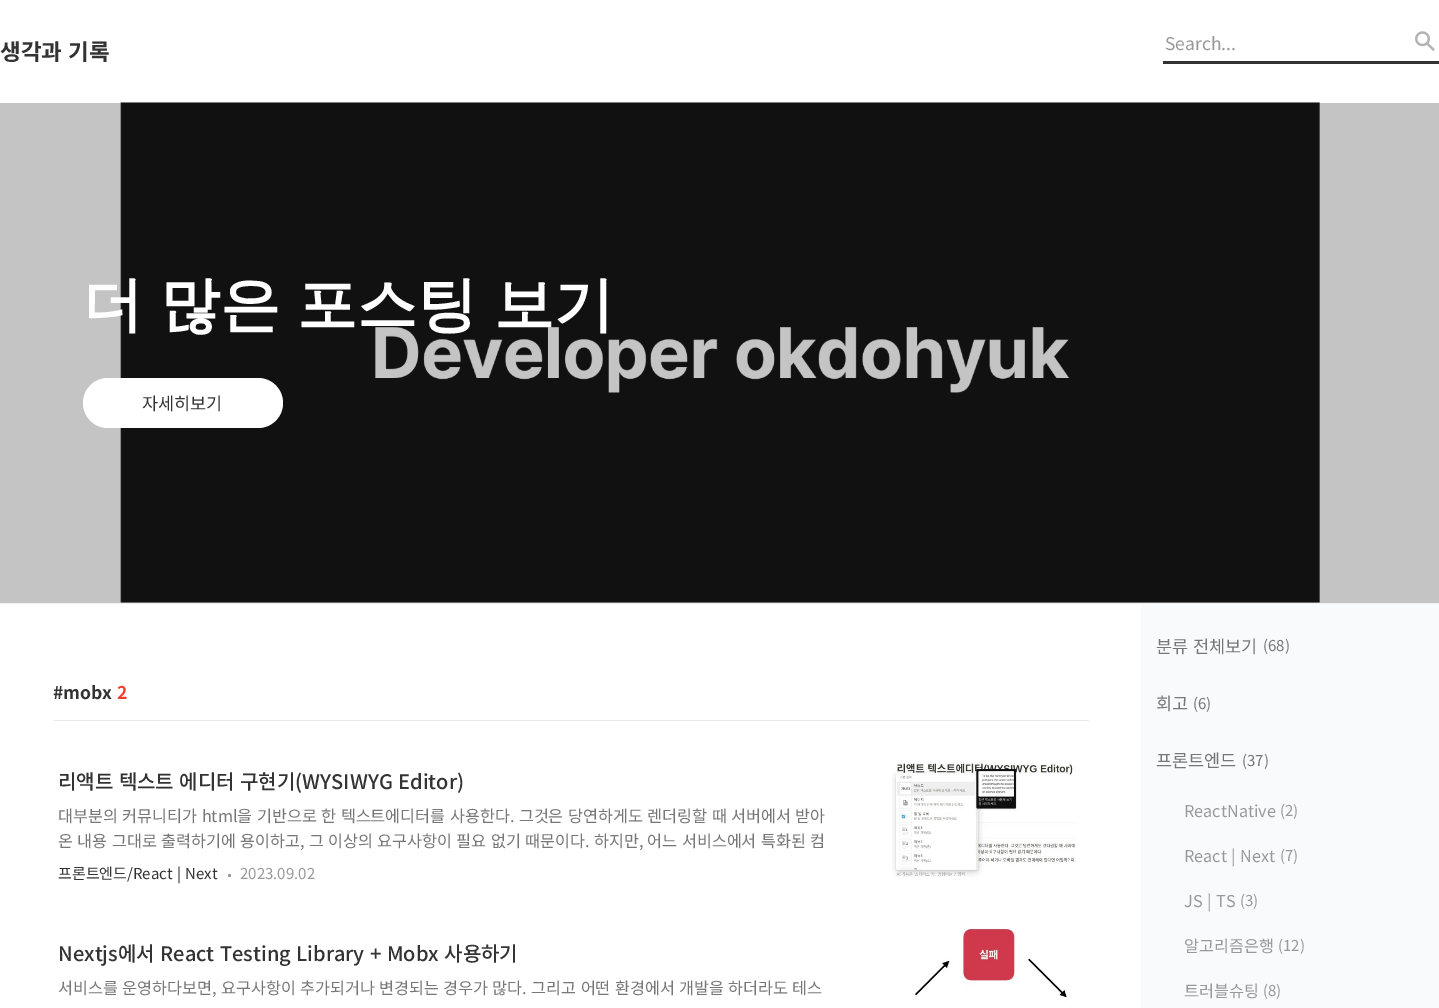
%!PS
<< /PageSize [1439 1008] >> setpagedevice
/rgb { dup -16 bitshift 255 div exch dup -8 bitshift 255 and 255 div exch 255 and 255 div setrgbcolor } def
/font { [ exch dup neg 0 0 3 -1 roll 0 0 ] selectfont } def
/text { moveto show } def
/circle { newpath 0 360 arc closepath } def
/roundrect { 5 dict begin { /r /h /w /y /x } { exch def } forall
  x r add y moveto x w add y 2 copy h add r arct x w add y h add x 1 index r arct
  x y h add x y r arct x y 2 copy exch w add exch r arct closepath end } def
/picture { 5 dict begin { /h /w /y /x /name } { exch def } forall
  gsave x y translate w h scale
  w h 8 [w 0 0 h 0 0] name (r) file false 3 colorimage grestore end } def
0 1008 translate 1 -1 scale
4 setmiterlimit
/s1 { /NotoSansKR-Regular 17.5 font 16#999999 rgb } def
/s2 { /NotoSansKR-Regular 17.5 font 16#333333 rgb } def
/s3 { /NotoSansKR-Bold 17.5 font 16#333333 rgb } def
/s4 { /NotoSansKR-Bold 17.5 font 16#EF402F rgb } def
/s5 { /NotoSansKR-Regular 15 font 16#999999 rgb } def
/s6 { /NotoSansKR-Regular 15 font 16#777777 rgb } def
/s7 { /NotoSansKR-Regular 17.5 font 16#777777 rgb } def
/s8 { /NotoSansKR-Regular 16.25 font 16#999999 rgb } def
16#FFFFFF rgb
0 0 1439 1008 rectfill
16#C4C4C4 rgb
0 103 1439 500 rectfill
16#EFEFEF rgb
0 603 1439 1 rectfill
/NotoSansKR-Bold 22.5 font
16#333333 rgb
0 60 moveto 1 0 32 (생각과 기록) widthshow
(pic1.raw) 1415 31 20 20 picture
1163 61 276 3 rectfill
s1
(Search...) 1165 50 text
(pic2.raw) 120 102 1200 501 picture
/WenQuanYiZenHei-Bold 60 font
16#FFFFFF rgb
83 325 moveto -1 0 32 (더 많은 포스팅 보기) widthshow
83 378 200 50 25 roundrect fill
s2
(자세히보기) 142 410 text
16#E8E8E8 rgb
54 720 1035 1 rectfill
s3
(#mobx) 53 699 text
s4
(2) 117 699 text
/NotoSansKR-Medium 20 font
16#333333 rgb
58 789 moveto 1 0 32 (리액트 텍스트 에디터 구현기\(WYSIWYG Editor\)) widthshow
/NotoSansKR-Regular 16.25 font
16#777777 rgb
58 822 moveto 0.9 0 32 (대부분의 커뮤니티가 html을 기반으로 한 텍스트에디터를 사용한다. 그것은 당연하게도 렌더링할 때 서버에서 받아) widthshow
58 847 moveto 0.75 0 32 (온 내용 그대로 출력하기에 용이하고, 그 이상의 요구사항이 필요 없기 때문이다. 하지만, 어느 서비스에서 특화된 컴) widthshow
/NotoSansKR-Regular 15 font
16#333333 rgb
58 879 moveto 1 0 32 (프론트엔드/React | Next) widthshow
16#999999 rgb
229.5 875.5 1.5 circle fill
(2023.09.02) 240 879 text
(pic3.raw) 892 758 184 119 picture
/NotoSansKR-Medium 20 font
16#333333 rgb
58 961 moveto 1 0 32 (Nextjs에서 React Testing Library + Mobx 사용하기) widthshow
/NotoSansKR-Regular 16.25 font
16#777777 rgb
58 994 moveto 0.75 0 32 (서비스를 운영하다보면, 요구사항이 추가되거나 변경되는 경우가 많다. 그리고 어떤 환경에서 개발을 하더라도 테스) widthshow
(pic4.raw) 915 928 171 79 picture
16#F9FAFB rgb
1141 604 298 404 rectfill
/NotoSansKR-Regular 17.5 font
16#777777 rgb
1156 653 moveto 1 0 32 (분류 전체보기) widthshow
s6
(\(68\)) 1263 651 text
s7
(회고) 1156 710 text
s6
(\(6\)) 1193 709 text
s7
(프론트엔드) 1156 767 text
s6
(\(37\)) 1242 766 text
s8
(ReactNative) 1184 817 text
s5
(\(2\)) 1280 816 text
/NotoSansKR-Regular 16.25 font
1184 862 moveto 0.9 0 32 (React | Next) widthshow
s5
(\(7\)) 1280 861 text
/NotoSansKR-Regular 16.25 font
1184 907 moveto 0.9 0 32 (JS | TS) widthshow
s5
(\(3\)) 1240 906 text
s8
(알고리즘은행) 1184 952 text
s5
(\(12\)) 1278 951 text
s8
(트러블슈팅) 1184 997 text
s5
(\(8\)) 1263 996 text
showpage
